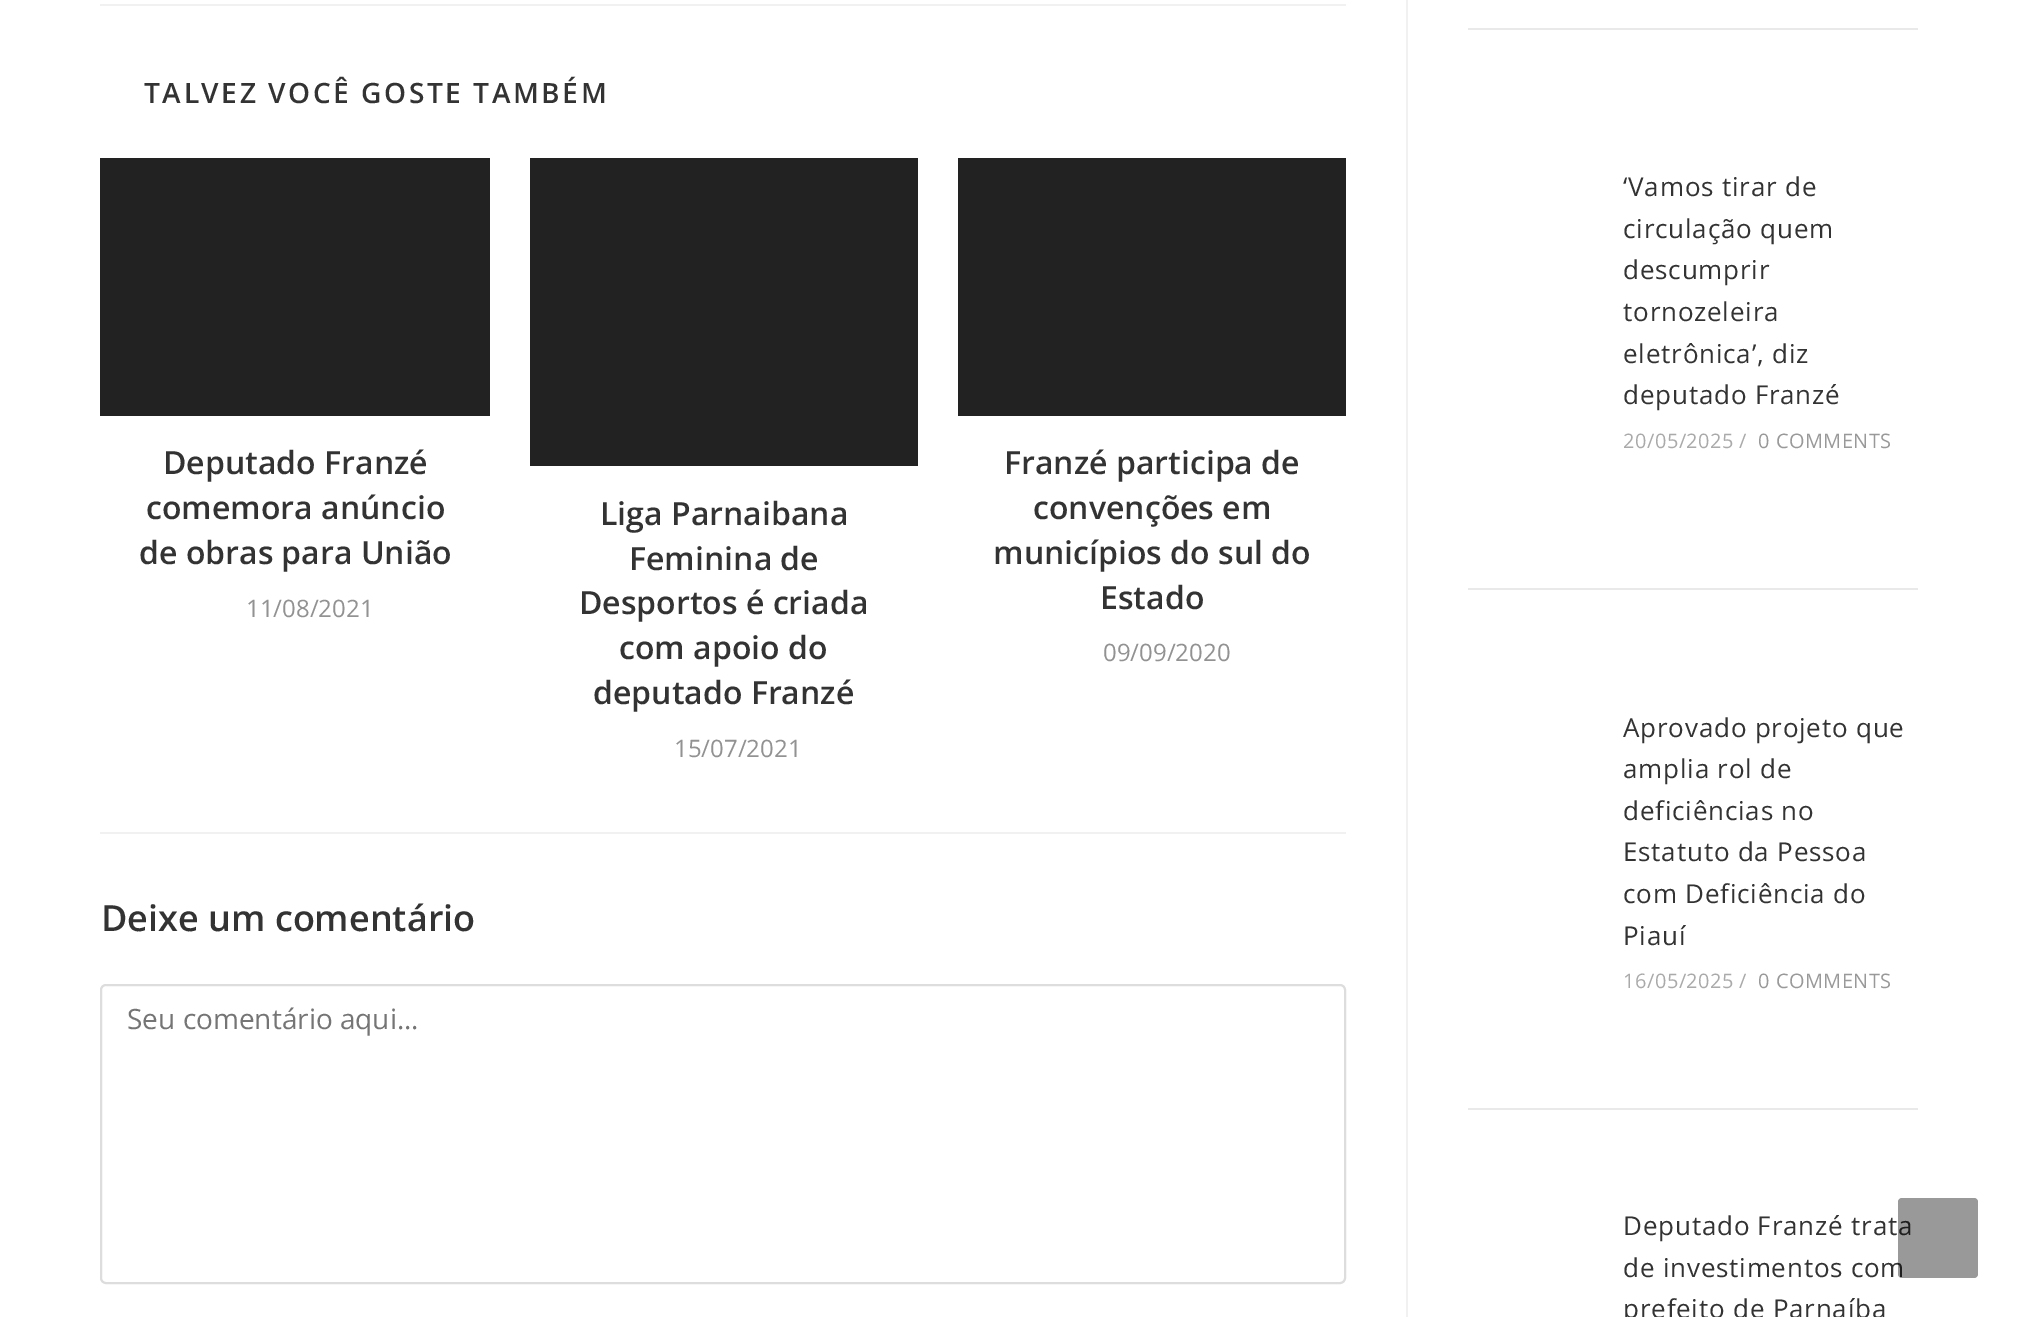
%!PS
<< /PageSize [2017 1317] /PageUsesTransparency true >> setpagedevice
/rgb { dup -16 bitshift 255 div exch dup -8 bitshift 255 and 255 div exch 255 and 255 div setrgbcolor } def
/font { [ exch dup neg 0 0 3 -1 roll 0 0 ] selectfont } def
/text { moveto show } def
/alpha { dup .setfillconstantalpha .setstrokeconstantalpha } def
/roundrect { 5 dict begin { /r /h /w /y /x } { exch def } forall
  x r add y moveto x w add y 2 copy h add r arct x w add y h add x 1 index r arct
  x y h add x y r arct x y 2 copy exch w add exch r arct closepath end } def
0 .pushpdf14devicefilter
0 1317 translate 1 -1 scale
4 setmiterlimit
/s1 { /OpenSans-SemiBold 32 font 16#333333 rgb } def
/s2 { /OpenSans-Regular 24 font 16#929292 rgb } def
/s3 { /OpenSans-SemiBold 36 font 16#333333 rgb } def
/s4 { /OpenSans-Regular 28 font 16#757575 rgb } def
16#FFFFFF rgb
0 0 2017 1317 rectfill
16#F1F1F1 rgb
1406 0 2 1317 rectfill
100 4 1246 2 rectfill
/OpenSans-SemiBold 28 font
16#333333 rgb
144 103 moveto 2.6 0 (TALVEZ VOCÊ GOSTE TAMBÉM) ashow
16#222222 rgb
100 158 390 258 rectfill
s1
(Deputado Franzé) 163 474 text
(comemora anúncio) 146 519 text
(de obras para União) 139 564 text
s2
(11/08/2021) 246 617 text
16#222222 rgb
530 158 388 308 rectfill
s1
(Liga Parnaibana) 600 525 text
(Feminina de) 629 570 text
(Desportos é criada) 579 614 text
(com apoio do) 619 659 text
(deputado Franzé) 593 704 text
s2
(15/07/2021) 674 757 text
16#222222 rgb
958 158 388 258 rectfill
s1
(Franzé participa de) 1004 474 text
(convenções em) 1033 519 text
(municípios do sul do) 993 564 text
(Estado) 1100 609 text
s2
(09/09/2020) 1103 661 text
16#F1F1F1 rgb
100 832 1246 2 rectfill
s3
(Deixe um comentário) 101 931 text
16#DDDDDD rgb
2 setlinewidth
101 985 1244 298 5 roundrect stroke
s4
(Seu comentário aqui...) 127 1029 text
16#E9E9E9 rgb
1468 28 450 2 rectfill
/OpenSans-Regular 26 font
16#333333 rgb
1623 196 moveto 0.8 0 (‘Vamos tirar de) ashow
1623 238 moveto 0.8 0 (circulação quem) ashow
1623 279 moveto 0.8 0 (descumprir) ashow
1623 321 moveto 0.8 0 (tornozeleira) ashow
1623 363 moveto 0.8 0 (eletrônica’, diz) ashow
1623 404 moveto 0.8 0 (deputado Franzé) ashow
/OpenSans-Regular 20 font
16#AAAAAA rgb
1623 448 moveto 0.5 0 (20/05/2025) ashow
1739 448 moveto 0.5 0 (/) ashow
16#999999 rgb
1758 448 moveto 0.5 0 (0 COMMENTS) ashow
16#E9E9E9 rgb
1468 588 450 2 rectfill
/OpenSans-Regular 26 font
16#333333 rgb
1623 737 moveto 0.8 0 (Aprovado projeto que) ashow
1623 778 moveto 0.8 0 (amplia rol de) ashow
1623 820 moveto 0.8 0 (deficiências no) ashow
1623 861 moveto 0.8 0 (Estatuto da Pessoa) ashow
1623 903 moveto 0.8 0 (com Deficiência do) ashow
1623 945 moveto 0.8 0 (Piauí) ashow
/OpenSans-Regular 20 font
16#AAAAAA rgb
1623 988 moveto 0.5 0 (16/05/2025) ashow
1739 988 moveto 0.5 0 (/) ashow
16#999999 rgb
1758 988 moveto 0.5 0 (0 COMMENTS) ashow
16#E9E9E9 rgb
1468 1108 450 2 rectfill
/OpenSans-Regular 26 font
16#333333 rgb
1623 1235 moveto 0.8 0 (Deputado Franzé trata) ashow
1623 1277 moveto 0.8 0 (de investimentos com) ashow
1623 1318 moveto 0.8 0 (prefeito de Parnaíba) ashow
0.4 alpha
16#000000 rgb
1898 1198 80 80 4 roundrect fill
.poppdf14devicefilter showpage
